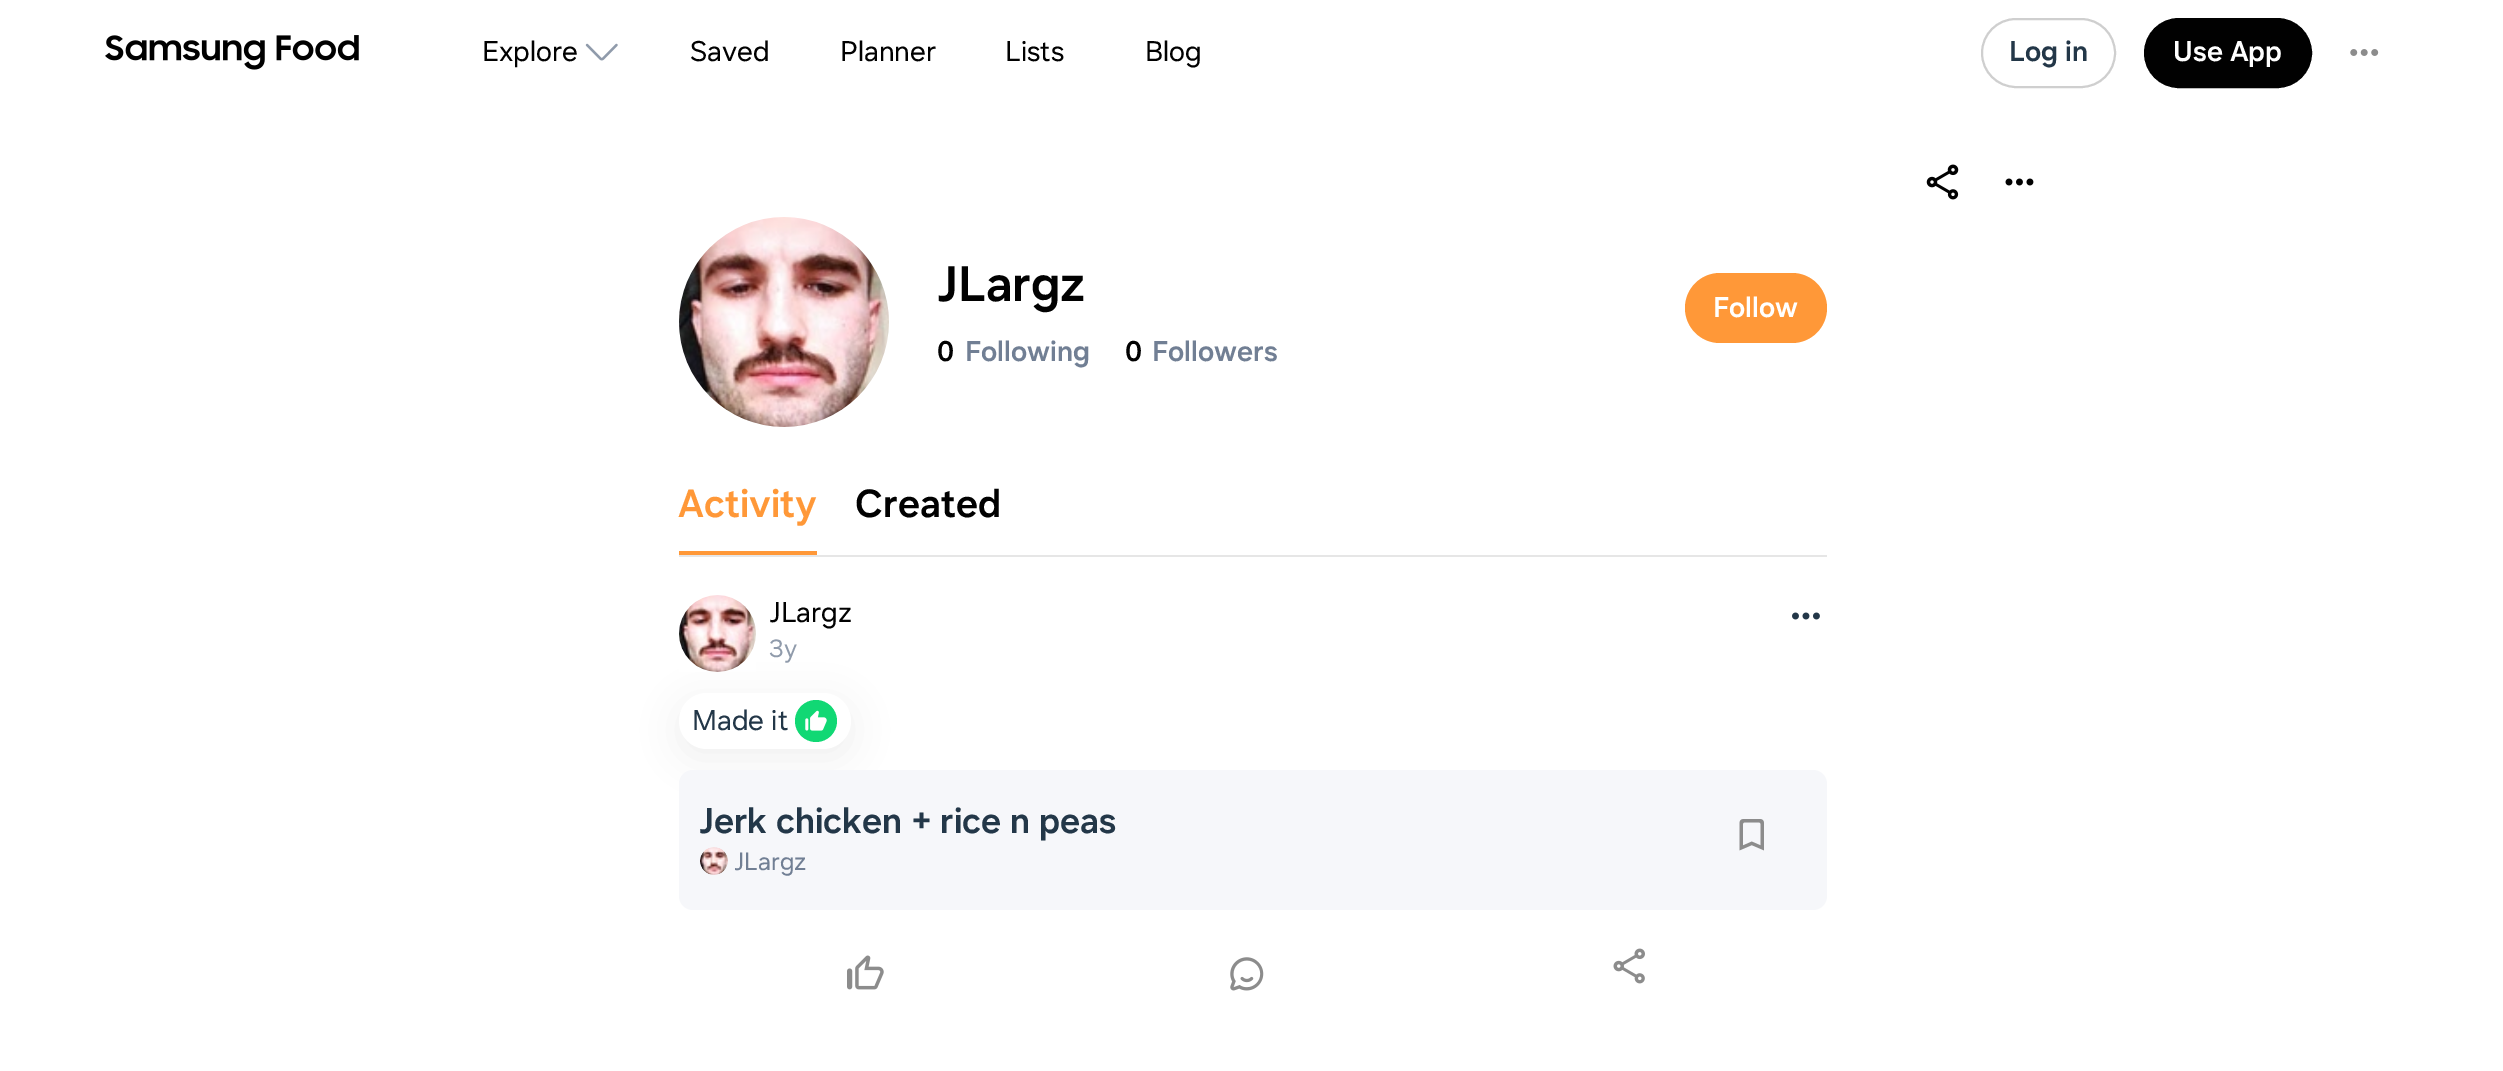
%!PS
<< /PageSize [2503 1071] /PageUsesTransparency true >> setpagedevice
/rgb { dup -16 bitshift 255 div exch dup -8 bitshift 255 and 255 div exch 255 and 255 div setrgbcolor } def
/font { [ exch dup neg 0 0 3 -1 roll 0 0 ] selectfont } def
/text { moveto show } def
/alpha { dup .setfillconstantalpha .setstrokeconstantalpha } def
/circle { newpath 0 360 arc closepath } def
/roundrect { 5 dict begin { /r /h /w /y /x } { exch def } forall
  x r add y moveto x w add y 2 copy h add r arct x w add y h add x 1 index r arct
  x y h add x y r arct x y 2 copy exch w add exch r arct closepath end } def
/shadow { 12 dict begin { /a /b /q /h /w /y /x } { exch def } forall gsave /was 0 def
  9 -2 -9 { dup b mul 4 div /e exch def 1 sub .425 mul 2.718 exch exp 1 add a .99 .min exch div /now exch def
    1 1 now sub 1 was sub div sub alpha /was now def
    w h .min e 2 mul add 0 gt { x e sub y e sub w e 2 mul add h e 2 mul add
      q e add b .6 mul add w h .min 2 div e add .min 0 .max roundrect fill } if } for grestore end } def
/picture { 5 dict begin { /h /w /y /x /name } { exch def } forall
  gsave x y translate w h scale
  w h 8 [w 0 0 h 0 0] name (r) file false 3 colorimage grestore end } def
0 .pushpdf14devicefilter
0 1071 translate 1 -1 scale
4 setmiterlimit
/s1 { /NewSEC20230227-Regular 28 font 16#010101 rgb } def
/s2 { /NewSEC20230227-SemiBold 28 font 16#233748 rgb } def
/s3 { /NewSEC20230227-SemiBold 28 font 16#FFFFFF rgb } def
/s4 { /NewSEC20230227-SemiBold 49 font 16#010101 rgb } def
/s5 { /NewSEC20230227-SemiBold 28 font 16#010101 rgb } def
/s6 { /NewSEC20230227-SemiBold 28 font 16#717F94 rgb } def
/s7 { /NewSEC20230227-SemiBold 38.5 font 16#FF9838 rgb } def
/s8 { /NewSEC20230227-SemiBold 38.5 font 16#010101 rgb } def
/s9 { /NewSEC20230227-Regular 24.5 font 16#909BAB rgb } def
/s10 { /NewSEC20230227-Regular 28 font 16#233748 rgb } def
/s11 { /NewSEC20230227-SemiBold 35 font 16#233748 rgb } def
/s12 { /NewSEC20230227-Regular 24.5 font 16#717F94 rgb } def
16#FFFFFF rgb
0 0 2503 1071 rectfill
(pic1.raw) 105 35 254 35 picture
s1
(Explore) 482 61 text
(pic2.raw) 585 43 33 18 picture
(Saved) 690 61 text
(Planner) 840 61 text
(Lists) 1005 61 text
(Blog) 1145 61 text
16#CFCFCF rgb
2 setlinewidth
1982 19 133 68 34 roundrect stroke
s2
(Log in) 2009 61 text
16#010101 rgb
2145 19 166 68 34 roundrect gsave fill grestore
stroke
s3
(Use App) 2173 61 text
(pic3.raw) 2350 49 29 7 picture
(pic4.raw) 1926 164 33 36 picture
(pic5.raw) 2005 178 29 8 picture
(pic6.raw) 679 217 210 210 picture
s4
(JLargz) 937 301 text
s5
(0) 937 361 text
s6
(Following) 965 361 text
s5
(0) 1125 361 text
s6
(Followers) 1152 361 text
16#FF9838 rgb
1685 273 142 70 35 roundrect fill
s3
(Follow) 1713 317 text
16#E6E6E6 rgb
679 555 1148 2 rectfill
gsave
679 452 138 103 rectclip
16#FF9838 rgb
506 278 moveto 990 278 lineto 990 728 lineto 506 728 lineto closepath 679 441 moveto 817 441 lineto 819 441 821 443 821 444 curveto 821 548 lineto 821 550 819 551 817 551 curveto 679 551 lineto 677 551 676 550 676 548 curveto 676 444 lineto 676 443 677 441 679 441 curveto closepath eofill
grestore
s7
(Activity) 678 517 text
s8
(Created) 855 517 text
16#626277 rgb
679 702 172 56 28 17.5 0.1 shadow
(pic7.raw) 679 595 77 77 picture
s1
(JLargz) 769 622 text
s9
(3y) 769 657 text
(pic8.raw) 1792 612 28 8 picture
16#FFFFFF rgb
679 693 172 56 28 roundrect fill
s10
(Made it) 692 730 text
16#11D874 rgb
816 721 21 circle fill
(pic9.raw) 805 710 22 21 picture
16#F6F7FA rgb
679 770 1148 140 14 roundrect fill
s11
(Jerk chicken + rice n peas) 699 833 text
(pic10.raw) 700 847 28 28 picture
s12
(JLargz) 734 870 text
(pic11.raw) 1739 819 25 32 picture
(pic12.raw) 847 955 37 35 picture
(pic13.raw) 1230 957 34 34 picture
(pic14.raw) 1613 948 32 36 picture
.poppdf14devicefilter showpage
